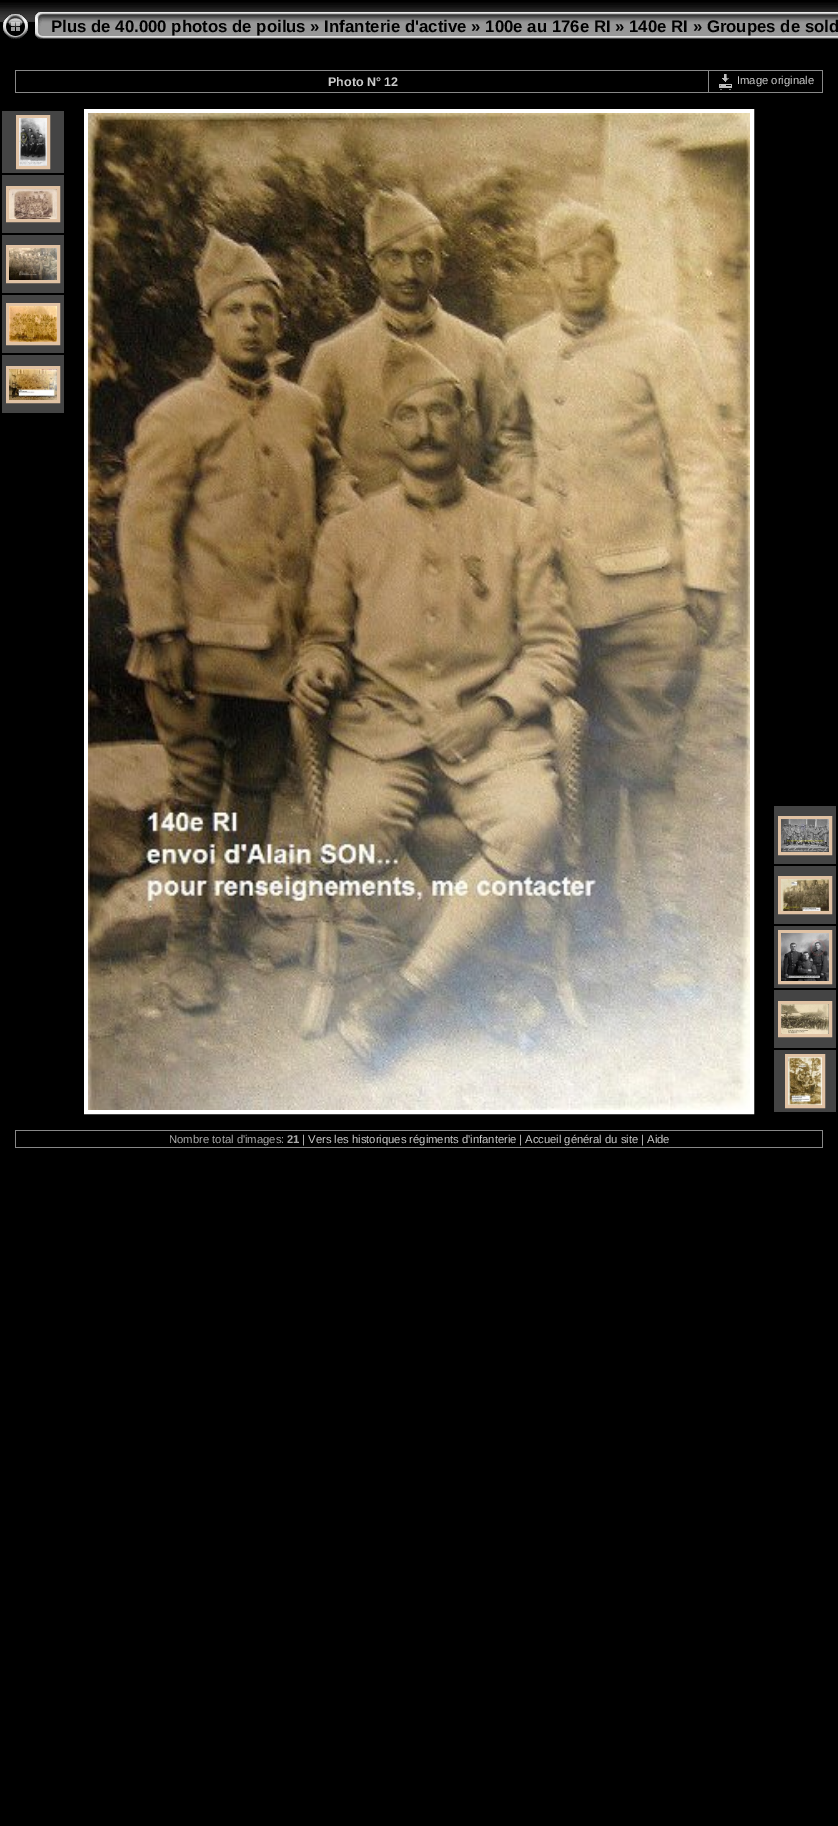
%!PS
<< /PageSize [838 1826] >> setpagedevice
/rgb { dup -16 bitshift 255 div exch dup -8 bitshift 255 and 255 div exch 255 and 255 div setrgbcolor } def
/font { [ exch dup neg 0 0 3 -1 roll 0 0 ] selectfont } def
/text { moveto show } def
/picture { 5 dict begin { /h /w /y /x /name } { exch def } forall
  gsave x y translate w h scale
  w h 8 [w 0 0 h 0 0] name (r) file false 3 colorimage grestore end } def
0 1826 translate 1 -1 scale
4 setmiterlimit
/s1 { /LiberationSans-Bold 16.8 font 16#000000 rgb } def
/s2 { /LiberationSans-Bold 12.5 font 16#CCCCCC rgb } def
/s3 { /LiberationSans-Regular 11.25 font 16#CCCCCC rgb } def
/s4 { /LiberationSans-Regular 11.25 font 16#AAAAAA rgb } def
/s5 { /LiberationSans-Bold 11.25 font 16#AAAAAA rgb } def
16#000000 rgb
0 0 838 1826 rectfill
(pic1.raw) 0 2 838 20 picture
(pic2.raw) 3 14 25 25 picture
(pic3.raw) 35 12 16 27 picture
(pic4.raw) 51 12 787 27 picture
s1
(Plus de 40.000 photos de poilus » Infanterie d'active » 100e au 176e RI » 140e RI » Groupes de sold) 51 32 text
16#888888 rgb
15 70 808 1 rectfill
822 70 1 23 rectfill
15 92 808 1 rectfill
15 70 1 23 rectfill
s2
(Photo N° 12) 328 86 text
16#888888 rgb
708 70 1 23 rectfill
(pic5.raw) 719 74 13 16 picture
s3
(Image originale) 737 84 text
16#444444 rgb
2 111 62 62 rectfill
16#E0C2A4 rgb
3 setlinewidth
17.5 116.5 31 51 rectstroke
(pic6.raw) 19 118 28 48 picture
16#444444 rgb
2 175 62 58 rectfill
16#E0C2A4 rgb
7.5 187.5 51 33 rectstroke
(pic7.raw) 9 189 48 30 picture
16#444444 rgb
2 235 62 58 rectfill
16#E0C2A4 rgb
7.5 246.5 51 35 rectstroke
(pic8.raw) 9 248 48 32 picture
16#444444 rgb
2 295 62 58 rectfill
16#E0C2A4 rgb
7.5 304.5 51 39 rectstroke
(pic9.raw) 9 306 48 36 picture
16#444444 rgb
2 355 62 58 rectfill
16#E0C2A4 rgb
7.5 367.5 51 34 rectstroke
(pic10.raw) 9 369 48 31 picture
16#FFFFFF rgb
4 setlinewidth
86 111 666 1001 rectstroke
(pic11.raw) 88 113 662 997 picture
16#444444 rgb
774 806 62 58 rectfill
16#E0C2A4 rgb
3 setlinewidth
779.5 817.5 51 36 rectstroke
(pic12.raw) 781 819 48 33 picture
16#444444 rgb
774 866 62 58 rectfill
16#E0C2A4 rgb
779.5 877.5 51 35 rectstroke
(pic13.raw) 781 879 48 32 picture
16#444444 rgb
774 926 62 62 rectfill
16#E0C2A4 rgb
779.5 931.5 51 51 rectstroke
(pic14.raw) 781 933 48 48 picture
16#444444 rgb
774 990 62 58 rectfill
16#E0C2A4 rgb
779.5 1002.5 51 33 rectstroke
(pic15.raw) 781 1004 48 30 picture
16#444444 rgb
774 1050 62 62 rectfill
16#E0C2A4 rgb
786.5 1055.5 37 51 rectstroke
(pic16.raw) 788 1057 34 48 picture
16#888888 rgb
15 1130 808 1 rectfill
822 1130 1 18 rectfill
15 1147 808 1 rectfill
15 1130 1 18 rectfill
s4
(Nombre total d'images:) 169 1143 text
s5
(21) 287 1143 text
s4
(|) 302 1143 text
s3
(Vers les historiques régiments d'infanterie) 308 1143 text
s4
(|) 519 1143 text
s3
(Accueil général du site) 525 1143 text
s4
(|) 641 1143 text
s3
(Aide) 647 1143 text
showpage
